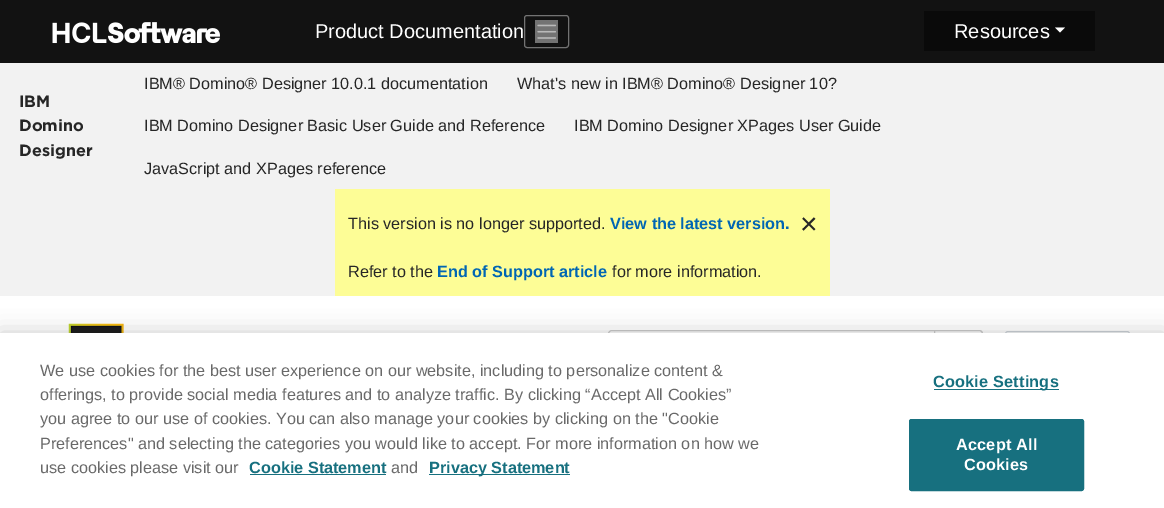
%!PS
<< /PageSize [1164 508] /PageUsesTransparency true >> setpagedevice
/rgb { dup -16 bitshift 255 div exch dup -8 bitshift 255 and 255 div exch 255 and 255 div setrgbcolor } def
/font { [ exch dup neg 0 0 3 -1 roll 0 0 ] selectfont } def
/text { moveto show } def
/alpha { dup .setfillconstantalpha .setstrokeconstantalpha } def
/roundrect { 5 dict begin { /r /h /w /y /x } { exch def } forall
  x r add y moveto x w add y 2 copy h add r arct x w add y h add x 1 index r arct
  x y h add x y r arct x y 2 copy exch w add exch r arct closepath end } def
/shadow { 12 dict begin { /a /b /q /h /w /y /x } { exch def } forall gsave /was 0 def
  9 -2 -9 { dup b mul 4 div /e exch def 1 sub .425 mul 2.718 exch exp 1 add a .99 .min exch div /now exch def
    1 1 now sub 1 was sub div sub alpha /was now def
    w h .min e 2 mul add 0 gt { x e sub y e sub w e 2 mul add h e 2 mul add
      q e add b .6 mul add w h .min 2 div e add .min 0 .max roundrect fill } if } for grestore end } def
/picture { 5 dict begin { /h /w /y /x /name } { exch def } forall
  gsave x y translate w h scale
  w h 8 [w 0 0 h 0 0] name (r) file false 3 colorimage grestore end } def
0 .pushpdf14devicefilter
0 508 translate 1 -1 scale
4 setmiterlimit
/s1 { /LiberationSans-Regular 20 font 16#FFFFFF rgb } def
/s2 { /Gotham-Bold 16.25 font 16#262626 rgb } def
/s3 { /LiberationSans-Regular 16.25 font 16#262626 rgb } def
/s4 { /LiberationSans-Bold 16.25 font 16#0066B3 rgb } def
/s5 { /LiberationSans-Regular 30 font 16#262626 rgb } def
/s6 { /LiberationSans-Regular 16.25 font 16#696969 rgb } def
/s7 { /LiberationSans-Bold 16.25 font 16#17707F rgb } def
16#FFFFFF rgb
0 0 1164 508 rectfill
16#121212 rgb
0 0 1164 63 rectfill
(pic1.raw) 52 22 168 22 picture
s1
(Product Documentation) 315 38 text
16#737373 rgb
524.5 15.5 44 32 2.5 roundrect stroke
535 20 23 23 rectfill
(pic2.raw) 537 24 19 15 picture
16#0A0A0A rgb
924 11 171 40 rectfill
s1
(Resources) 954 38 text
1055 27.5 moveto 1065 27.5 lineto 1060 32.5 lineto closepath fill
16#F2F2F2 rgb
0 63 1164 233 rectfill
s2
(IBM) 19 107 text
(Domino) 19 131 text
(Designer) 19 156 text
s3
(IBM® Domino® Designer 10.0.1 documentation) 144 89 text
(What's new in IBM® Domino® Designer 10?) 517 89 text
(IBM Domino Designer Basic User Guide and Reference) 144 131 text
(IBM Domino Designer XPages User Guide) 574 131 text
(JavaScript and XPages reference) 144 174 text
16#FDFD96 rgb
335 189 495 107 rectfill
s3
(This version is no longer supported.) 348 229 text
s4
(View the latest version.) 610 229 text
s5
(×) 800 234 text
s3
(Refer to the) 348 277 text
s4
(End of Support article) 437 277 text
s3
(for more information.) 612 277 text
(pic3.raw) 68 323 168 10 picture
16#CCCCCC rgb
608.5 330.5 374 40 3.5 roundrect stroke
16#FFFFFF rgb
934.5 330.5 moveto 979 330.5 lineto 981 330.5 982.5 332 982.5 334 curveto 982.5 367 lineto 982.5 369 981 370.5 979 370.5 curveto 934.5 370.5 lineto closepath gsave fill grestore
16#CCCCCC rgb
stroke
16#CED4DA rgb
1005.5 331.5 124 39 2.5 roundrect stroke
16#000000 rgb
0 333 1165 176 0 11 0.2 shadow
16#FFFFFF rgb
0 333 1164 175 rectfill
s6
(We use cookies for the best user experience on our website, including to personalize content &) 40 376 text
(offerings, to provide social media features and to analyze traffic. By clicking “Accept All Cookies”) 40 400 text
(you agree to our use of cookies. You can also manage your cookies by clicking on the "Cookie) 40 424 text
(Preferences" and selecting the categories you would like to accept. For more information on how we) 40 449 text
(use cookies please visit our) 40 473 text
s7
(Cookie Statement) 249 473 text
250 474 136 1 rectfill
s6
(and) 391 473 text
16#17707F rgb
429 474 141 1 rectfill
s7
(Privacy Statement) 429 473 text
934 389 125 1 rectfill
933 387 moveto 0.2 0 (Cookie Settings) ashow
909.5 419.5 174 71 2 roundrect gsave fill grestore
stroke
16#FFFFFF rgb
956 450 moveto 0.2 0 (Accept All) ashow
964 470 moveto 0.2 0 (Cookies) ashow
.poppdf14devicefilter showpage
